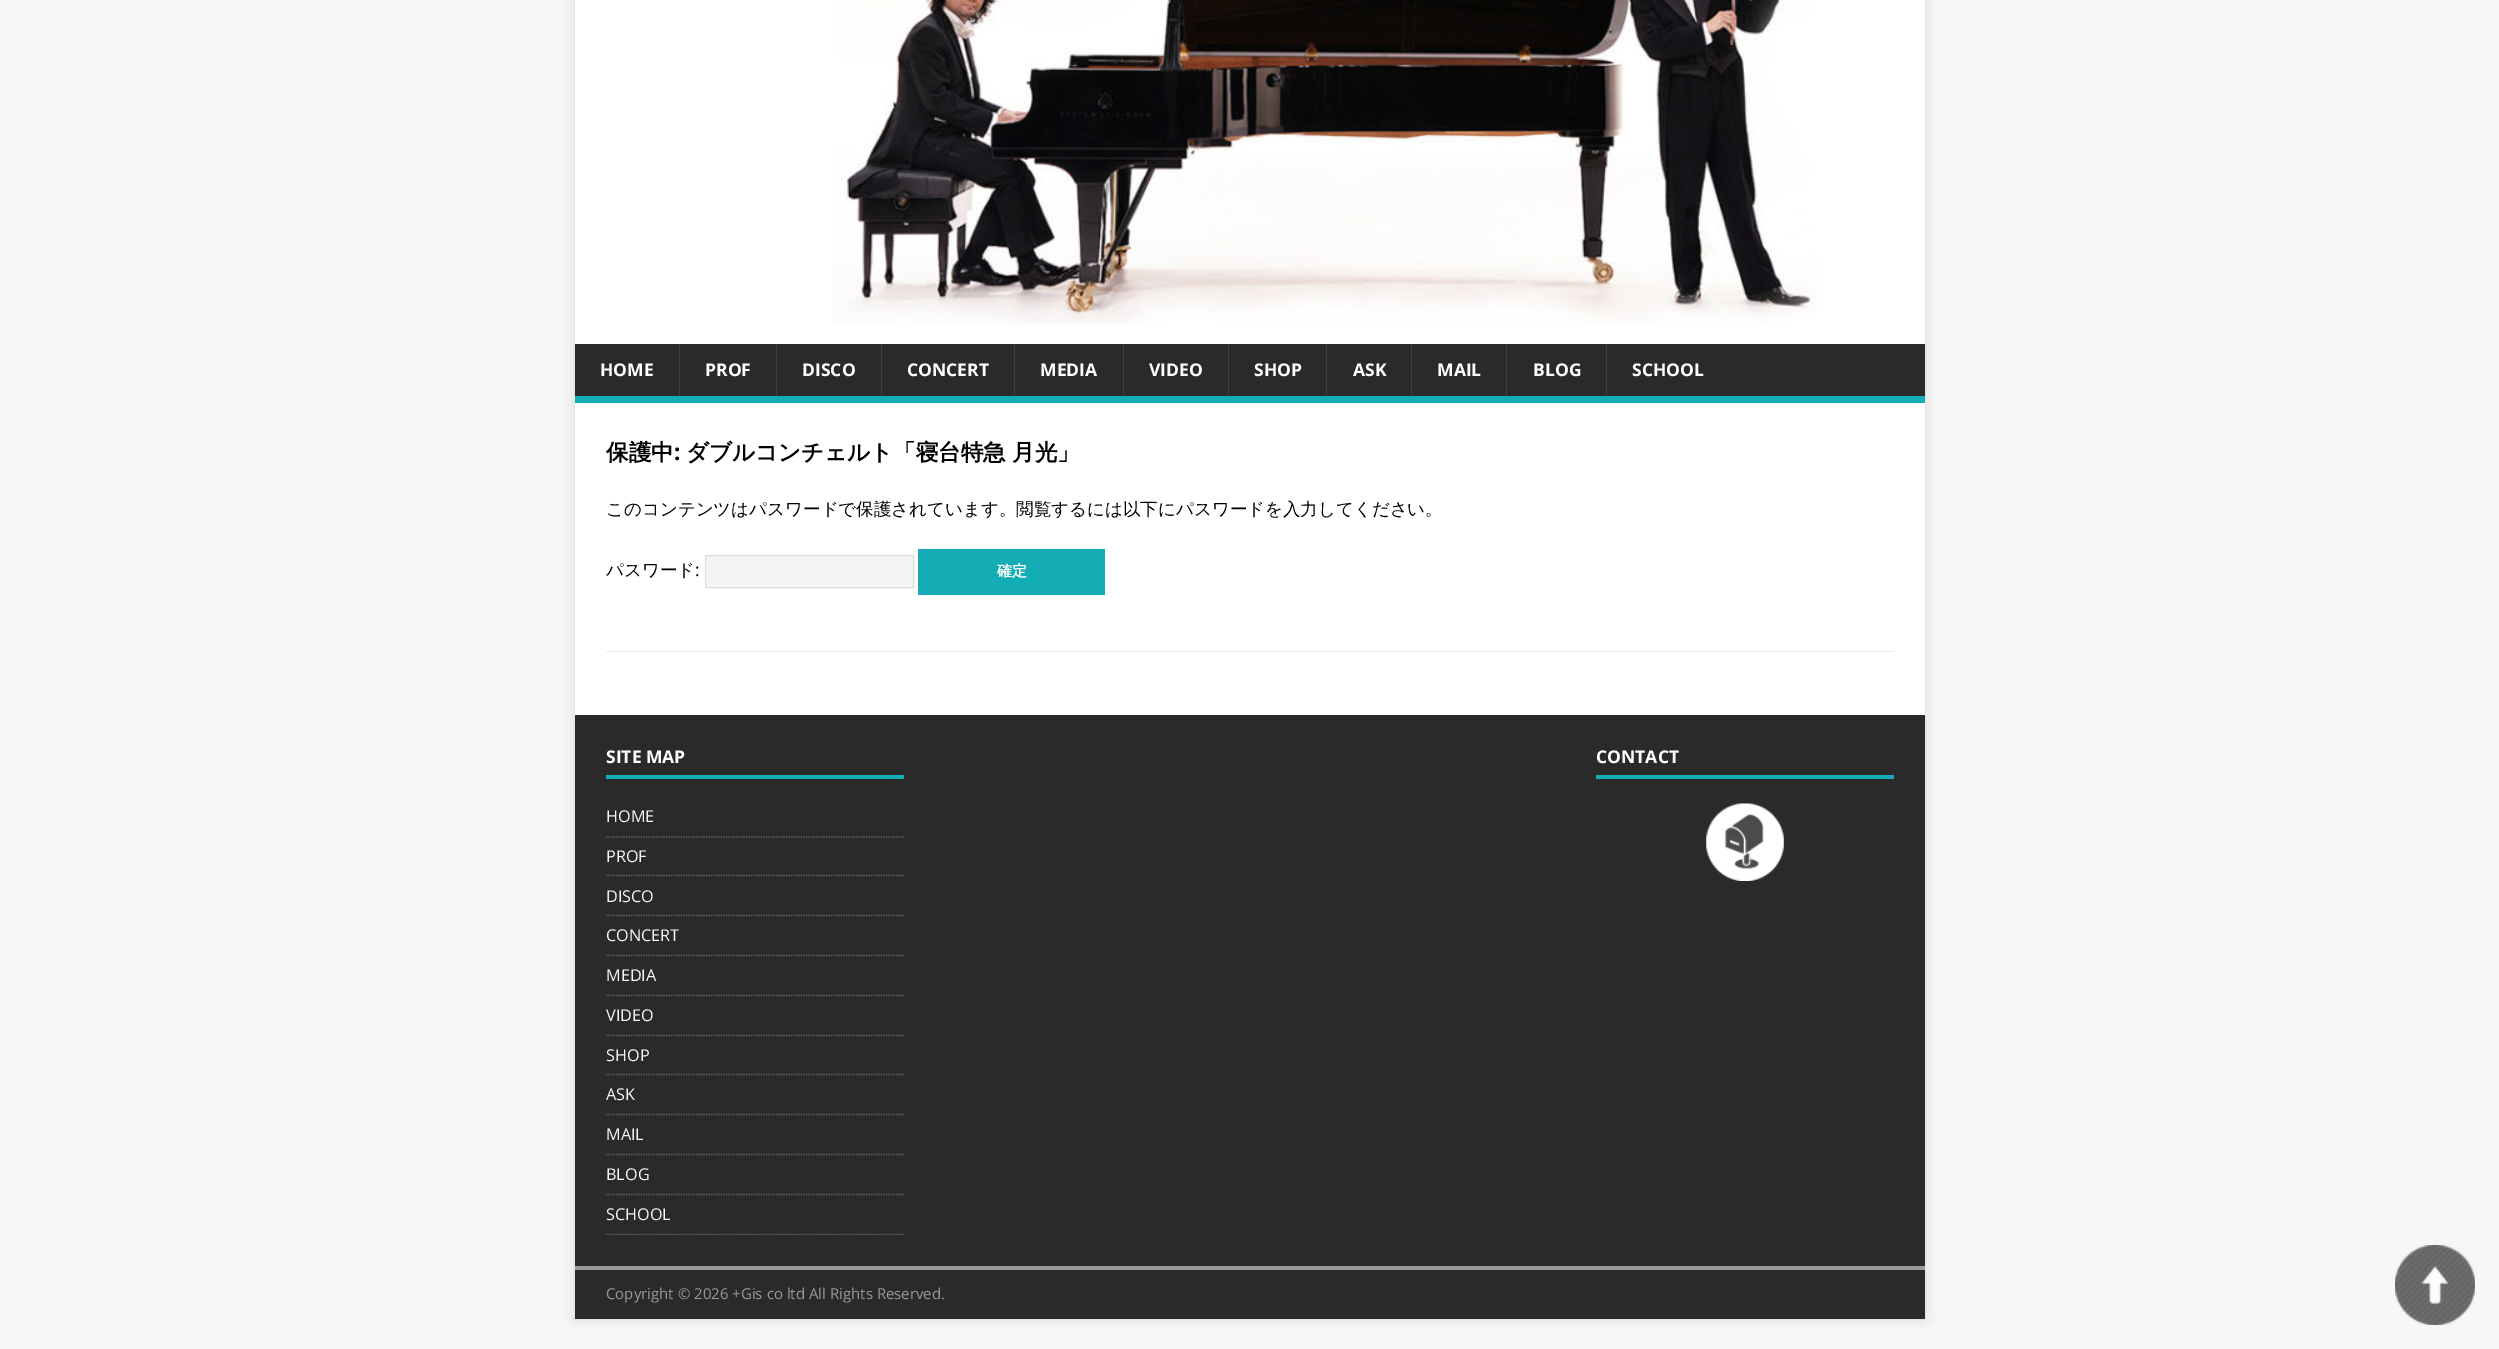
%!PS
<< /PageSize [2499 1349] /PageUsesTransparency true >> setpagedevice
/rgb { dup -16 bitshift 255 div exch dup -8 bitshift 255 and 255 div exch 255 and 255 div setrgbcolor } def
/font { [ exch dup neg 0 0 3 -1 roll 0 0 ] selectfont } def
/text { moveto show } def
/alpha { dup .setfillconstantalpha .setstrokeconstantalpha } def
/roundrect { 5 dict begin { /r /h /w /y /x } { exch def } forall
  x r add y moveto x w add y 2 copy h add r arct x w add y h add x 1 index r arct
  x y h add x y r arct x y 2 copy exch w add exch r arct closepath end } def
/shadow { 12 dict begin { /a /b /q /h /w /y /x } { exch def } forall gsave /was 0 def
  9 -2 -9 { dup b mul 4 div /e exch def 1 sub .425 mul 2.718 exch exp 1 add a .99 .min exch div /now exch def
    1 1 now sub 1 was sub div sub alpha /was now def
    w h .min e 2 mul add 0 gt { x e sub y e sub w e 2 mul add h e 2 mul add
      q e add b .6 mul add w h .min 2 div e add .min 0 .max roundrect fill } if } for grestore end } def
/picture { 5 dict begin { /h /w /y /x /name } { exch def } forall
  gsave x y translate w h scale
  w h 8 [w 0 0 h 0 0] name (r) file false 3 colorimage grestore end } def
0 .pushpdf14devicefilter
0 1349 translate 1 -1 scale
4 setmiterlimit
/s1 { /OpenSans-Bold 17.5 font 16#FFFFFF rgb } def
/s2 { /WenQuanYiZenHei-Bold 22.5 font 16#000000 rgb } def
/s3 { /OpenSans-Bold 22.5 font 16#000000 rgb } def
/s4 { /WenQuanYiZenHei-Medium 17.5 font 16#000000 rgb } def
/s5 { /OpenSans-Regular 17.5 font 16#000000 rgb } def
/s6 { /WenQuanYiZenHei-Bold 15 font 16#FFFFFF rgb } def
/s7 { /OpenSans-Regular 16.25 font 16#F7F7F7 rgb } def
/s8 { /OpenSans-Regular 15 font 16#999999 rgb } def
16#F7F7F7 rgb
0 0 2499 1349 rectfill
16#323232 rgb
575 -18 1350 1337 0 6 0.17 shadow
16#FFFFFF rgb
575 0 1350 344 rectfill
(pic1.raw) 832 0 986 325 picture
16#2A2A2A rgb
575 344 1350 52 rectfill
16#14ADB5 rgb
575 396 1350 7 rectfill
s1
(HOME) 600 376 text
16#3F3F3F rgb
679 344 1 52 rectfill
s1
(PROF) 705 376 text
16#3F3F3F rgb
776 344 1 52 rectfill
s1
(DISCO) 802 376 text
16#3F3F3F rgb
881 344 1 52 rectfill
s1
(CONCERT) 907 376 text
16#3F3F3F rgb
1014 344 1 52 rectfill
s1
(MEDIA) 1040 376 text
16#3F3F3F rgb
1123 344 1 52 rectfill
s1
(VIDEO) 1149 376 text
16#3F3F3F rgb
1228 344 1 52 rectfill
s1
(SHOP) 1254 376 text
16#3F3F3F rgb
1326 344 1 52 rectfill
s1
(ASK) 1353 376 text
16#3F3F3F rgb
1411 344 1 52 rectfill
s1
(MAIL) 1437 376 text
16#3F3F3F rgb
1506 344 1 52 rectfill
s1
(BLOG) 1533 376 text
16#3F3F3F rgb
1606 344 1 52 rectfill
s1
(SCHOOL) 1632 376 text
575 403 1350 312 rectfill
s2
(保護中) 606 460 text
s3
(:) 674 460 text
s2
(ダブルコンチェルト「寝台特急 月光」) 686 460 text
s4
(このコンテンツはパスワードで保護されています。閲覧するには以下にパスワードを入力してください。) 606 515 text
(パスワード) 606 576 text
s5
(:) 695 576 text
16#F5F5F5 rgb
705.5 555.5 moveto 913.5 555.5 lineto 913.5 587.5 lineto 705.5 587.5 lineto closepath gsave fill grestore
16#DDDDDD rgb
stroke
16#14ADB5 rgb
918 549 187 46 rectfill
s6
(確定) 997 576 text
16#EBEBEB rgb
606 651 1288 1 rectfill
16#2A2A2A rgb
575 715 1350 551 rectfill
16#14ADB5 rgb
606 775 298 4 rectfill
s1
(SITE MAP) 606 763 text
16#6A6A6A rgb
1.2 setlinewidth
[1.25 1.25] 0 setdash
606 837 moveto 904 837 lineto stroke
s7
(HOME) 606 822 text
16#6A6A6A rgb
606 875.5 moveto 904 875.5 lineto stroke
s7
(PROF) 606 862 text
16#6A6A6A rgb
606 915.5 moveto 904 915.5 lineto stroke
s7
(DISCO) 606 902 text
16#6A6A6A rgb
606 955.5 moveto 904 955.5 lineto stroke
s7
(CONCERT) 606 941 text
16#6A6A6A rgb
606 995.5 moveto 904 995.5 lineto stroke
s7
(MEDIA) 606 981 text
16#6A6A6A rgb
606 1035.5 moveto 904 1035.5 lineto stroke
s7
(VIDEO) 606 1021 text
16#6A6A6A rgb
606 1074.5 moveto 904 1074.5 lineto stroke
s7
(SHOP) 606 1061 text
16#6A6A6A rgb
606 1114.5 moveto 904 1114.5 lineto stroke
s7
(ASK) 606 1100 text
16#6A6A6A rgb
606 1154.5 moveto 904 1154.5 lineto stroke
s7
(MAIL) 606 1140 text
16#6A6A6A rgb
606 1194.5 moveto 904 1194.5 lineto stroke
s7
(BLOG) 606 1180 text
gsave
606 746 298 489 rectclip
16#6A6A6A rgb
606 1234.5 moveto 904 1234.5 lineto stroke
grestore
(SCHOOL) 606 1220 text
16#14ADB5 rgb
1596 775 298 4 rectfill
s1
(CONTACT) 1596 763 text
(pic2.raw) 1706 803 78 78 picture
16#2A2A2A rgb
575 1270 1350 49 rectfill
16#999999 rgb
575 1266 1350 4 rectfill
s8
(Copyright © 2026 +Gis co ltd All Rights Reserved.) 606 1299 text
(pic3.raw) 2395 1245 80 80 picture
.poppdf14devicefilter showpage
